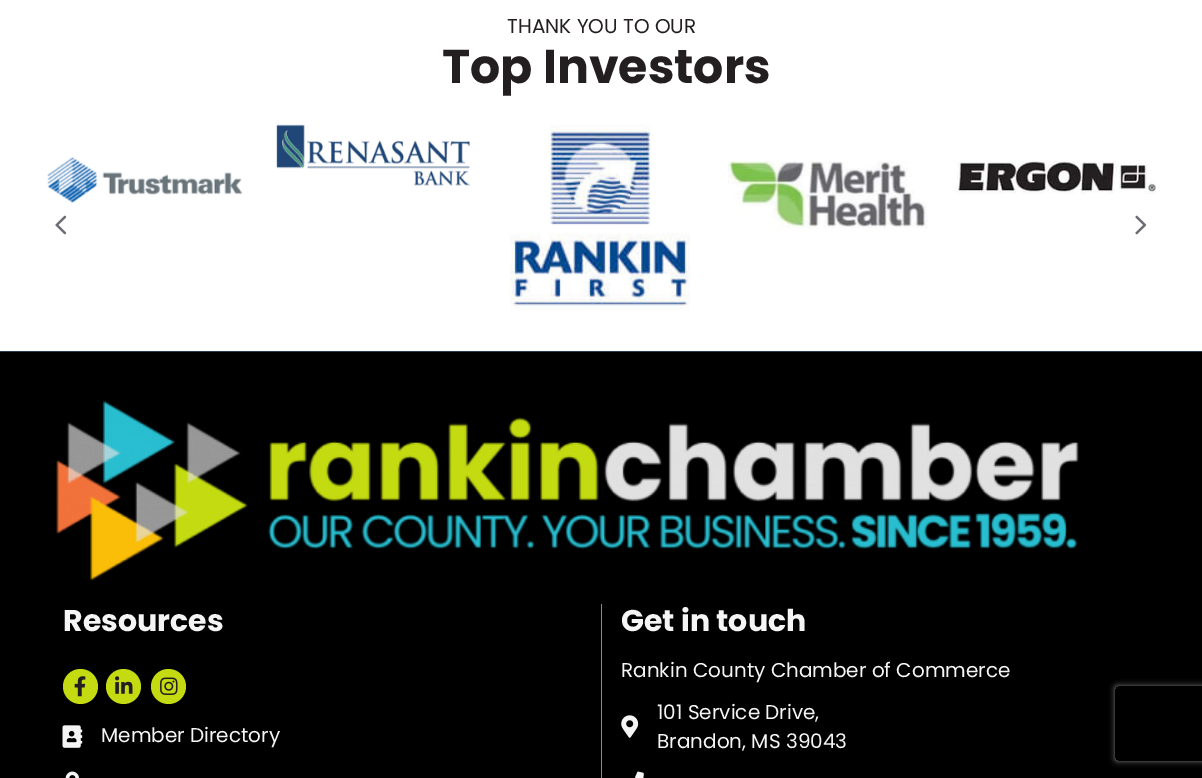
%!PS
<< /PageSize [1202 778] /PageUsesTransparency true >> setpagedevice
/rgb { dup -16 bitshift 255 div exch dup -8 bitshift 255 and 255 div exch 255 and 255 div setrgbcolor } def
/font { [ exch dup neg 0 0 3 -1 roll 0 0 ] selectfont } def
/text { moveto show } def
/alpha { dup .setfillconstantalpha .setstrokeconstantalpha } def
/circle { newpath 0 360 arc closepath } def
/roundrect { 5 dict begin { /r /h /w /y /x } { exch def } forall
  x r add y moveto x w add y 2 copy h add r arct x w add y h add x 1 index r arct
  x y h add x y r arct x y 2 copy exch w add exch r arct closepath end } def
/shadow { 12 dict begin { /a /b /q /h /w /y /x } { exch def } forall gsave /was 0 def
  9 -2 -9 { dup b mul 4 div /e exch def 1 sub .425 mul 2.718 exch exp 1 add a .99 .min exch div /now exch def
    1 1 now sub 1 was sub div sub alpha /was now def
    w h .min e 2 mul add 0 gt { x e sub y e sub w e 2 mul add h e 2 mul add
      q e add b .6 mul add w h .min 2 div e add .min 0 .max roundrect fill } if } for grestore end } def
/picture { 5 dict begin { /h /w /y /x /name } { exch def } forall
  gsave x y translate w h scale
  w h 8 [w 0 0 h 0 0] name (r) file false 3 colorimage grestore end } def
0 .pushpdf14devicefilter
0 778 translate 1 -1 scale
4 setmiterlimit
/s1 { /Poppins-Regular 20 font 16#231F20 rgb } def
/s2 { /Poppins-Bold 47.5 font 16#231F20 rgb } def
/s3 { /Poppins-Bold 30 font 16#F5F5F5 rgb } def
/s4 { /Poppins-Regular 20 font 16#F5F5F5 rgb } def
16#000000 rgb
0 0 1202 778 rectfill
16#FFFFFF rgb
0 0 1202 351 rectfill
s1
(THANK YOU TO OUR) 507 33 text
s2
(Top Investors) 442 83 text
(pic1.raw) 47 157 196 46 picture
(pic2.raw) 276 124 194 62 picture
(pic3.raw) 510 124 180 187 picture
(pic4.raw) 728 161 200 68 picture
(pic5.raw) 956 161 200 33 picture
(pic6.raw) 55 215 12 20 picture
(pic7.raw) 1135 215 12 20 picture
16#2C3A56 rgb
0 351 1202 1 rectfill
(pic8.raw) 56 400 1023 181 picture
s3
(Resources) 63 631 text
16#C4DB11 rgb
80.5 686.5 17.5 circle fill
(pic9.raw) 74 676 12 21 picture
123.5 686.5 17.5 circle fill
(pic10.raw) 115 676 18 18 picture
168.5 686.5 17.5 circle fill
(pic11.raw) 160 677 18 18 picture
(pic12.raw) 62 725 21 23 picture
s4
(Member Directory) 101 742 text
(pic13.raw) 65 771 14 7 picture
16#8A8A8A rgb
601 604 1 174 rectfill
s3
(Get in touch) 621 631 text
s4
(Rankin County Chamber of Commerce) 621 677 text
(pic14.raw) 621 715 18 23 picture
(101 Service Drive,) 657 719 text
(Brandon, MS 39043) 657 748 text
(pic15.raw) 635 771 9 7 picture
gsave
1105 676 moveto 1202 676 lineto 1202 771 lineto 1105 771 lineto closepath 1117.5 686 moveto 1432.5 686 lineto 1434 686 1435 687 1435 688.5 curveto 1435 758.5 lineto 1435 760 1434 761 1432.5 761 curveto 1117.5 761 lineto 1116 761 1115 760 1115 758.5 curveto 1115 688.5 lineto 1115 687 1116 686 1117.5 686 curveto closepath eoclip newpath
16#808080 rgb
1115 686 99 75 2.5 3 1 shadow
grestore
.poppdf14devicefilter showpage
